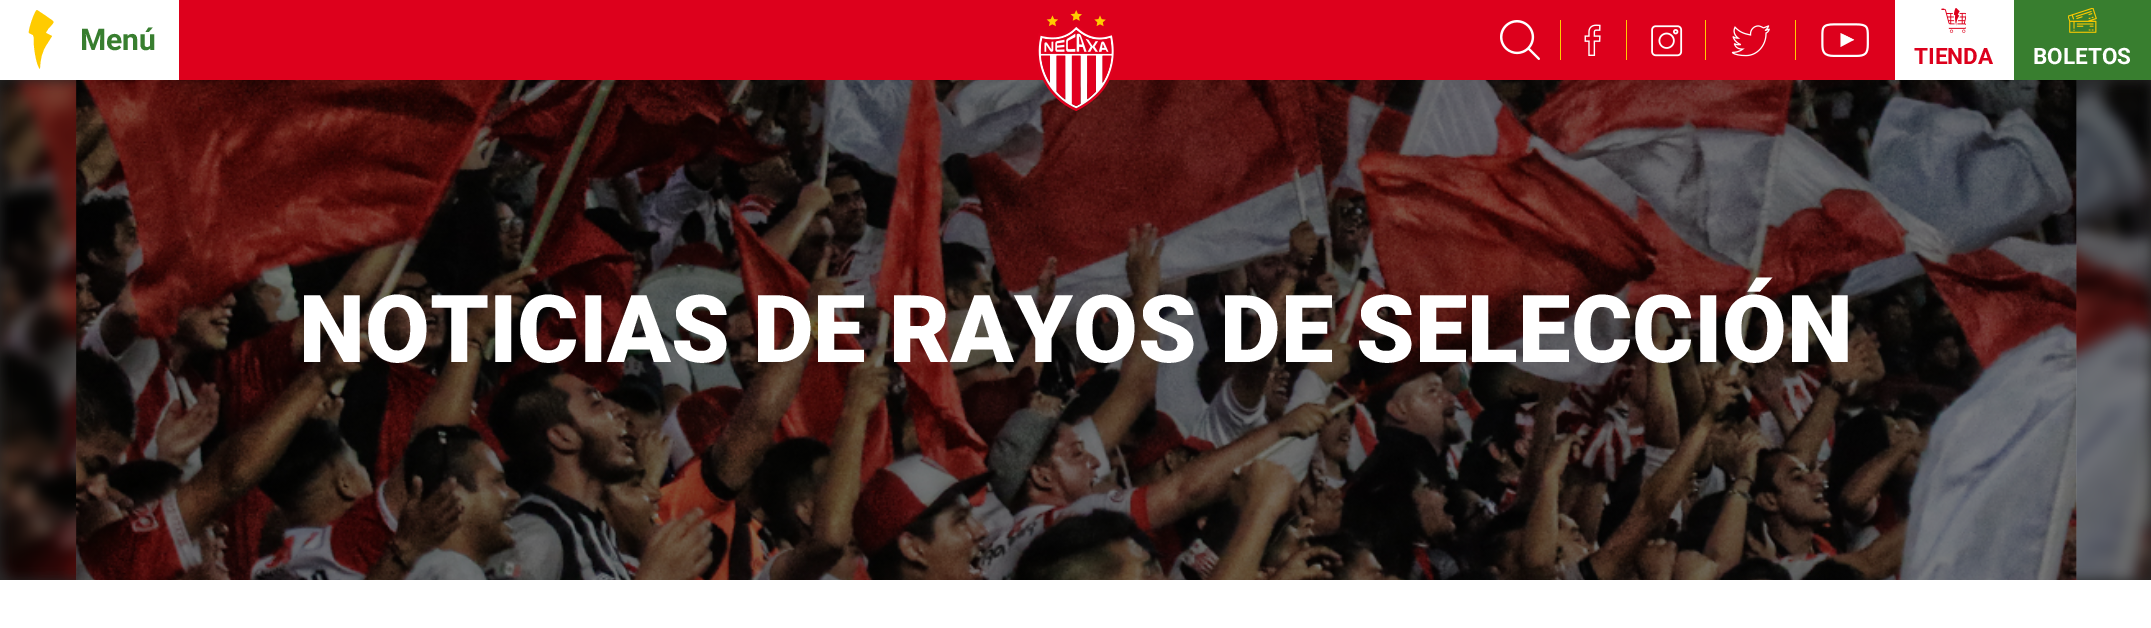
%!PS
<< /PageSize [2151 628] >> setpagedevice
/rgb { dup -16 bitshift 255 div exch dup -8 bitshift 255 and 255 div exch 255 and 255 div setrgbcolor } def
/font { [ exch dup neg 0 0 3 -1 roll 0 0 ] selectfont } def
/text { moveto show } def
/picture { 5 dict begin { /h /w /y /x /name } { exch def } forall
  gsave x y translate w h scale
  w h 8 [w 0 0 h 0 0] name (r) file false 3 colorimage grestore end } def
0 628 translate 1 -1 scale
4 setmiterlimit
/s1 { /Roboto-Bold 30 font 16#387E2F rgb } def
/s2 { /Roboto-Bold 22.5 font 16#DD001C rgb } def
/s3 { /Roboto-Bold 22.5 font 16#FFFFFF rgb } def
/s4 { /Roboto-Black 93.75 font 16#FFFFFF rgb } def
16#FFFFFF rgb
0 0 2151 628 rectfill
16#DD001C rgb
179 0 1716 80 rectfill
16#FFCB00 rgb
37 10 moveto 46 16 lineto 55 23 56 20 48 29 curveto 48 30 46 31 46 33 curveto 52 36 lineto 47 44 lineto 42 51 40 60 40 69 curveto 36 65 33 44 34 38 curveto 33 35 lineto 29 33 lineto 28 30 35 10 37 10 curveto closepath fill
s1
(Menú) 80 50 text
16#262626 rgb
0 80 2151 500 rectfill
(pic9.raw) 0 80 2151 500 picture
(pic10.raw) 76 80 2001 500 picture
(pic1.raw) 1038 10 76 101 picture
16#FFCB00 rgb
1560 20 1 40 rectfill
(pic2.raw) 1500 20 40 40 picture
1626 20 1 40 rectfill
(pic3.raw) 1584 24 17 32 picture
1705 20 1 40 rectfill
(pic4.raw) 1651 25 32 32 picture
1795 20 1 40 rectfill
(pic5.raw) 1731 25 39 32 picture
(pic6.raw) 1821 23 48 34 picture
(pic7.raw) 1941 8 25 25 picture
s2
(TIENDA) 1914 64 text
16#387E2F rgb
2014 0 137 80 rectfill
(pic8.raw) 2068 8 29 25 picture
s3
(BOLETOS) 2033 64 text
s4
(NOTICIAS DE RAYOS DE SELECCIÓN) 299 362 text
showpage
